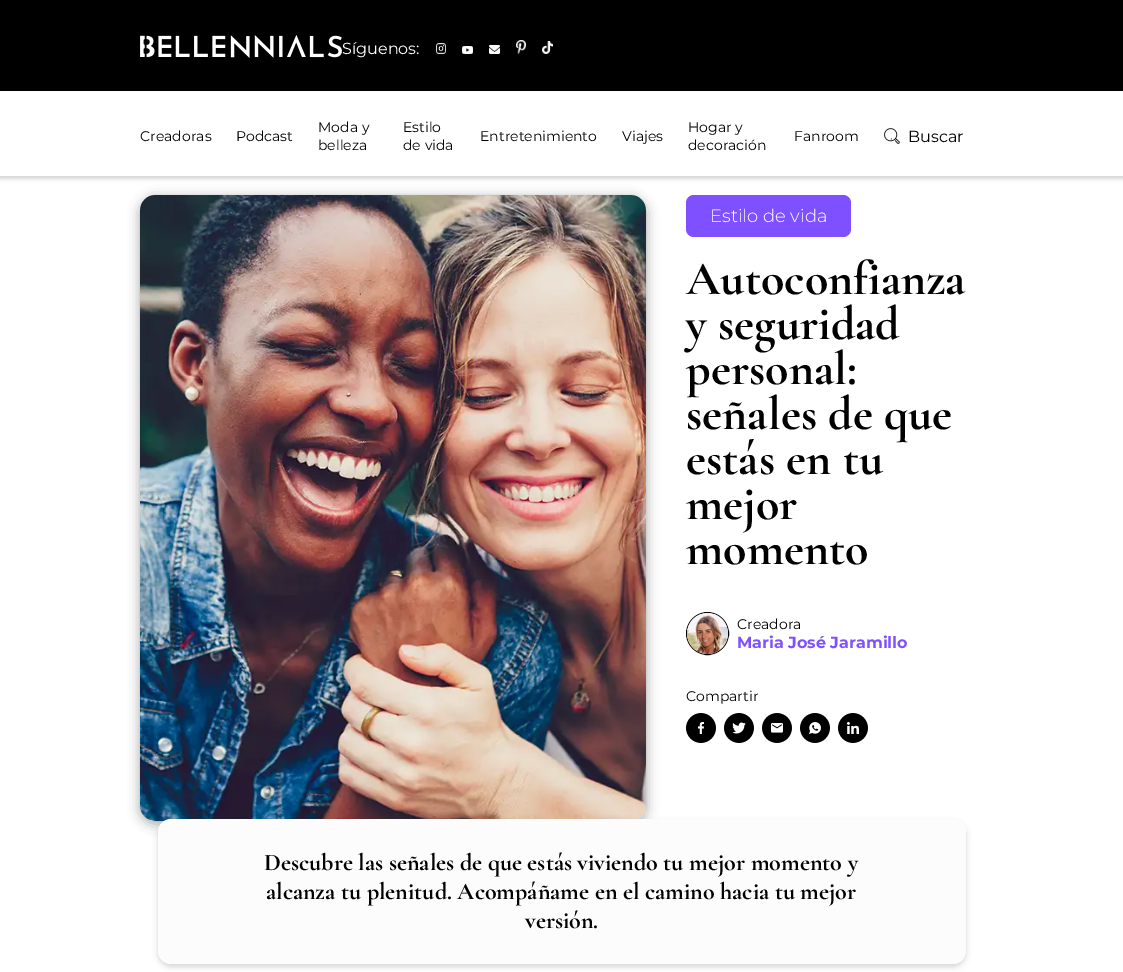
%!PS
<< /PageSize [1123 972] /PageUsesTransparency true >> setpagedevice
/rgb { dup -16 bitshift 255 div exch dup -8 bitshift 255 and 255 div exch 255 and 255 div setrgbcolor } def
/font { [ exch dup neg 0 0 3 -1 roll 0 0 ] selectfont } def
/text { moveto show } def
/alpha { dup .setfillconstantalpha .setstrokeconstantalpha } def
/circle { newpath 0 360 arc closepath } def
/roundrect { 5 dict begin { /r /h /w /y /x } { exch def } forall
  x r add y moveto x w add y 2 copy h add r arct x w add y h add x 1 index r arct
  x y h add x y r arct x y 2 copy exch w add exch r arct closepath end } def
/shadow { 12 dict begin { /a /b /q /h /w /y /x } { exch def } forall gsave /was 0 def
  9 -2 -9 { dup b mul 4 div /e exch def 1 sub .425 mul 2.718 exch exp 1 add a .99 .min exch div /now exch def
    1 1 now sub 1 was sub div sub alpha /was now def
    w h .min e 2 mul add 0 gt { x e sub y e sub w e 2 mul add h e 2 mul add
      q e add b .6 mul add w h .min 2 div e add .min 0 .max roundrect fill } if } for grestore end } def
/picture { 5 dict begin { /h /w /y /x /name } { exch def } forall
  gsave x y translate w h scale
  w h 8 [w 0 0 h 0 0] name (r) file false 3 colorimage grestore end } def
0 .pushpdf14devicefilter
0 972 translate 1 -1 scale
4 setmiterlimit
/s1 { /Montserrat-Regular 16 font 16#FFFFFF rgb } def
/s2 { /Montserrat-Regular 14 font 16#000000 rgb } def
/s3 { /Montserrat-Regular 16 font 16#000000 rgb } def
/s4 { /Montserrat-Light 18 font 16#FFFFFF rgb } def
/s5 { /CormorantGaramond-Bold 48 font 16#000000 rgb } def
/s6 { /Montserrat-Bold 16 font 16#7F50FF rgb } def
/s7 { /CormorantGaramond-Bold 24 font 16#000000 rgb } def
16#FFFFFF rgb
0 0 1123 972 rectfill
16#000000 rgb
0 0 1123 91 rectfill
(pic1.raw) 140 35 202 23 picture
s1
(Síguenos:) 342 54 text
(pic2.raw) 436 43 10 11 picture
(pic3.raw) 462 46 11 8 picture
(pic4.raw) 489 45 11 9 picture
(pic5.raw) 516 40 10 14 picture
(pic6.raw) 542 41 11 13 picture
gsave
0 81 moveto 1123 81 lineto 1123 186 lineto 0 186 lineto closepath 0 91 moveto 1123 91 lineto 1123 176 lineto 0 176 lineto closepath eoclip newpath
16#000000 rgb
-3 88 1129 91 0 2 0.16 shadow
grestore
s2
(Creadoras) 140 141 text
(Podcast) 236 141 text
(Moda y) 318 132 text
(belleza) 318 150 text
(Estilo) 403 132 text
(de vida) 403 150 text
(Entretenimiento) 480 141 text
(Viajes) 622 141 text
(Hogar y) 688 132 text
(decoración) 688 150 text
(Fanroom) 794 141 text
(pic7.raw) 884 128 16 16 picture
s3
(Buscar) 908 142 text
140 198 506 626 15 6 0.35 shadow
(pic8.raw) 140 195 506 626 picture
16#7F50FF rgb
686 195 165 42 8 roundrect fill
s4
(Estilo de vida) 710 222 text
s5
(Autoconfianza) 686 294 text
(y seguridad) 686 339 text
(personal:) 686 384 text
(señales de que) 686 429 text
(estás en tu) 686 474 text
(mejor) 686 519 text
(momento) 686 564 text
707.5 633.5 21 circle stroke
(pic9.raw) 687 613 41 41 picture
s2
(Creadora) 737 629 text
s6
(Maria José Jaramillo) 737 648 text
s2
(Compartir) 686 701 text
(pic10.raw) 686 713 30 30 picture
(pic11.raw) 724 713 30 30 picture
(pic12.raw) 762 713 30 30 picture
(pic13.raw) 800 713 30 30 picture
(pic14.raw) 838 713 30 30 picture
158 822 808 145 13 3 0.16 shadow
16#FCFCFC rgb
158 819 808 145 13 roundrect fill
s7
(Descubre las señales de que estás viviendo tu mejor momento y) 264 870 text
(alcanza tu plenitud. Acompáñame en el camino hacia tu mejor) 266 899 text
(versión.) 525 928 text
.poppdf14devicefilter showpage
